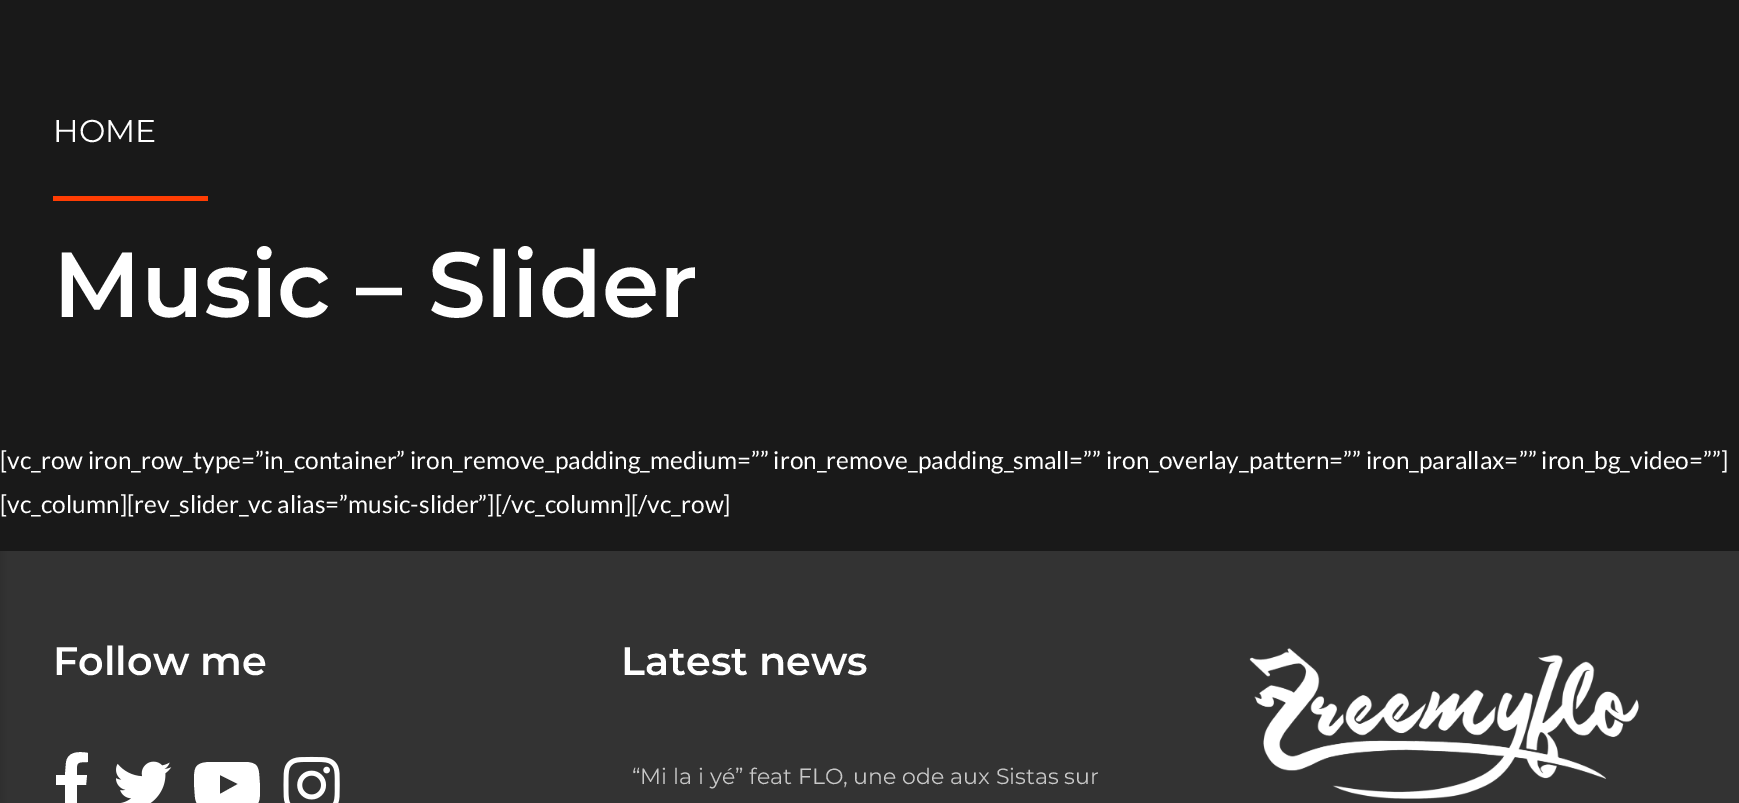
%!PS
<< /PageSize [1739 803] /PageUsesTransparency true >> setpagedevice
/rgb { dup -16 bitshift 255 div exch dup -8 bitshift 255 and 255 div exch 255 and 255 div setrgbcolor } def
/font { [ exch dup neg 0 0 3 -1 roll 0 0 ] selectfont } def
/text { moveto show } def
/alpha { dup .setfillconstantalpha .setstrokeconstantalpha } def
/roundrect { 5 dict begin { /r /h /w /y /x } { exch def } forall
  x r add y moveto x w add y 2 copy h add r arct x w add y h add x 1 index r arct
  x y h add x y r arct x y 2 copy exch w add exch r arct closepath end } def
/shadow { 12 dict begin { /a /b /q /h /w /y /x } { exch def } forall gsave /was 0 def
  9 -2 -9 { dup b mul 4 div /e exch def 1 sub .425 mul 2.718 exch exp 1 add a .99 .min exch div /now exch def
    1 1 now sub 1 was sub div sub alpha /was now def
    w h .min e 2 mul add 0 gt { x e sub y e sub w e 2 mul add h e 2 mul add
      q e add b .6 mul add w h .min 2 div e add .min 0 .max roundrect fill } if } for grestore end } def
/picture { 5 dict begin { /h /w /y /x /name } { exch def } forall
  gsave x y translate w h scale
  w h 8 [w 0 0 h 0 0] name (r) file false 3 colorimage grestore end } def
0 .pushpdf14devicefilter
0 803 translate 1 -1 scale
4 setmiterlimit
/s1 { /Montserrat-Regular 31.5 font 16#FFFFFF rgb } def
/s2 { /Montserrat-SemiBold 92 font 16#FFFFFF rgb } def
/s3 { /Lato-Regular 24.5 font 16#FFFFFF rgb } def
/s4 { /Montserrat-SemiBold 39.75 font 16#FFFFFF rgb } def
/s5 { /Montserrat-Regular 22.05 font 16#C8C8C8 rgb } def
16#191919 rgb
0 0 1739 803 rectfill
16#333333 rgb
0 551 1739 252 rectfill
16#000000 rgb
-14 0 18 803 0 4.5 0.1 shadow
s1
(HOME) 53 142 text
16#FF3D03 rgb
53 196 155 5 rectfill
s2
(Music – Slider) 53 317 text
s3
([vc_row iron_row_type=”in_container” iron_remove_padding_medium=”” iron_remove_padding_small=”” iron_overlay_pattern=”” iron_parallax=”” iron_bg_video=””]) 0 469 text
([vc_column][rev_slider_vc alias=”music-slider”][/vc_column][/vc_row]) 0 513 text
s4
(Follow me) 53 675 text
88 753 moveto 88 762 lineto 75 762 77 763 77 775 curveto 87 775 lineto 86 785 lineto 77 785 lineto 77 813 lineto 65 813 lineto 65 785 lineto 56 785 lineto 56 775 lineto 65 775 lineto 66 763 lineto 67 752 78 751 88 753 curveto closepath fill
(pic1.raw) 116 761 56 42 picture
220 794 moveto 238 784 lineto 220 775 lineto closepath 227 762 moveto 247 762 lineto 254 763 258 764 259 773 curveto 260 786 lineto 260 803 260 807 245 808 curveto 227 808 lineto 208 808 lineto 200 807 196 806 195 797 curveto 194 784 lineto 194 768 194 763 209 762 curveto closepath fill
(pic2.raw) 283 756 57 47 picture
(Latest news) 621 675 text
s5
(“Mi la i yé” feat FLO, une ode aux Sistas sur) 632 784 text
(pic3.raw) 1249 648 390 151 picture
.poppdf14devicefilter showpage
